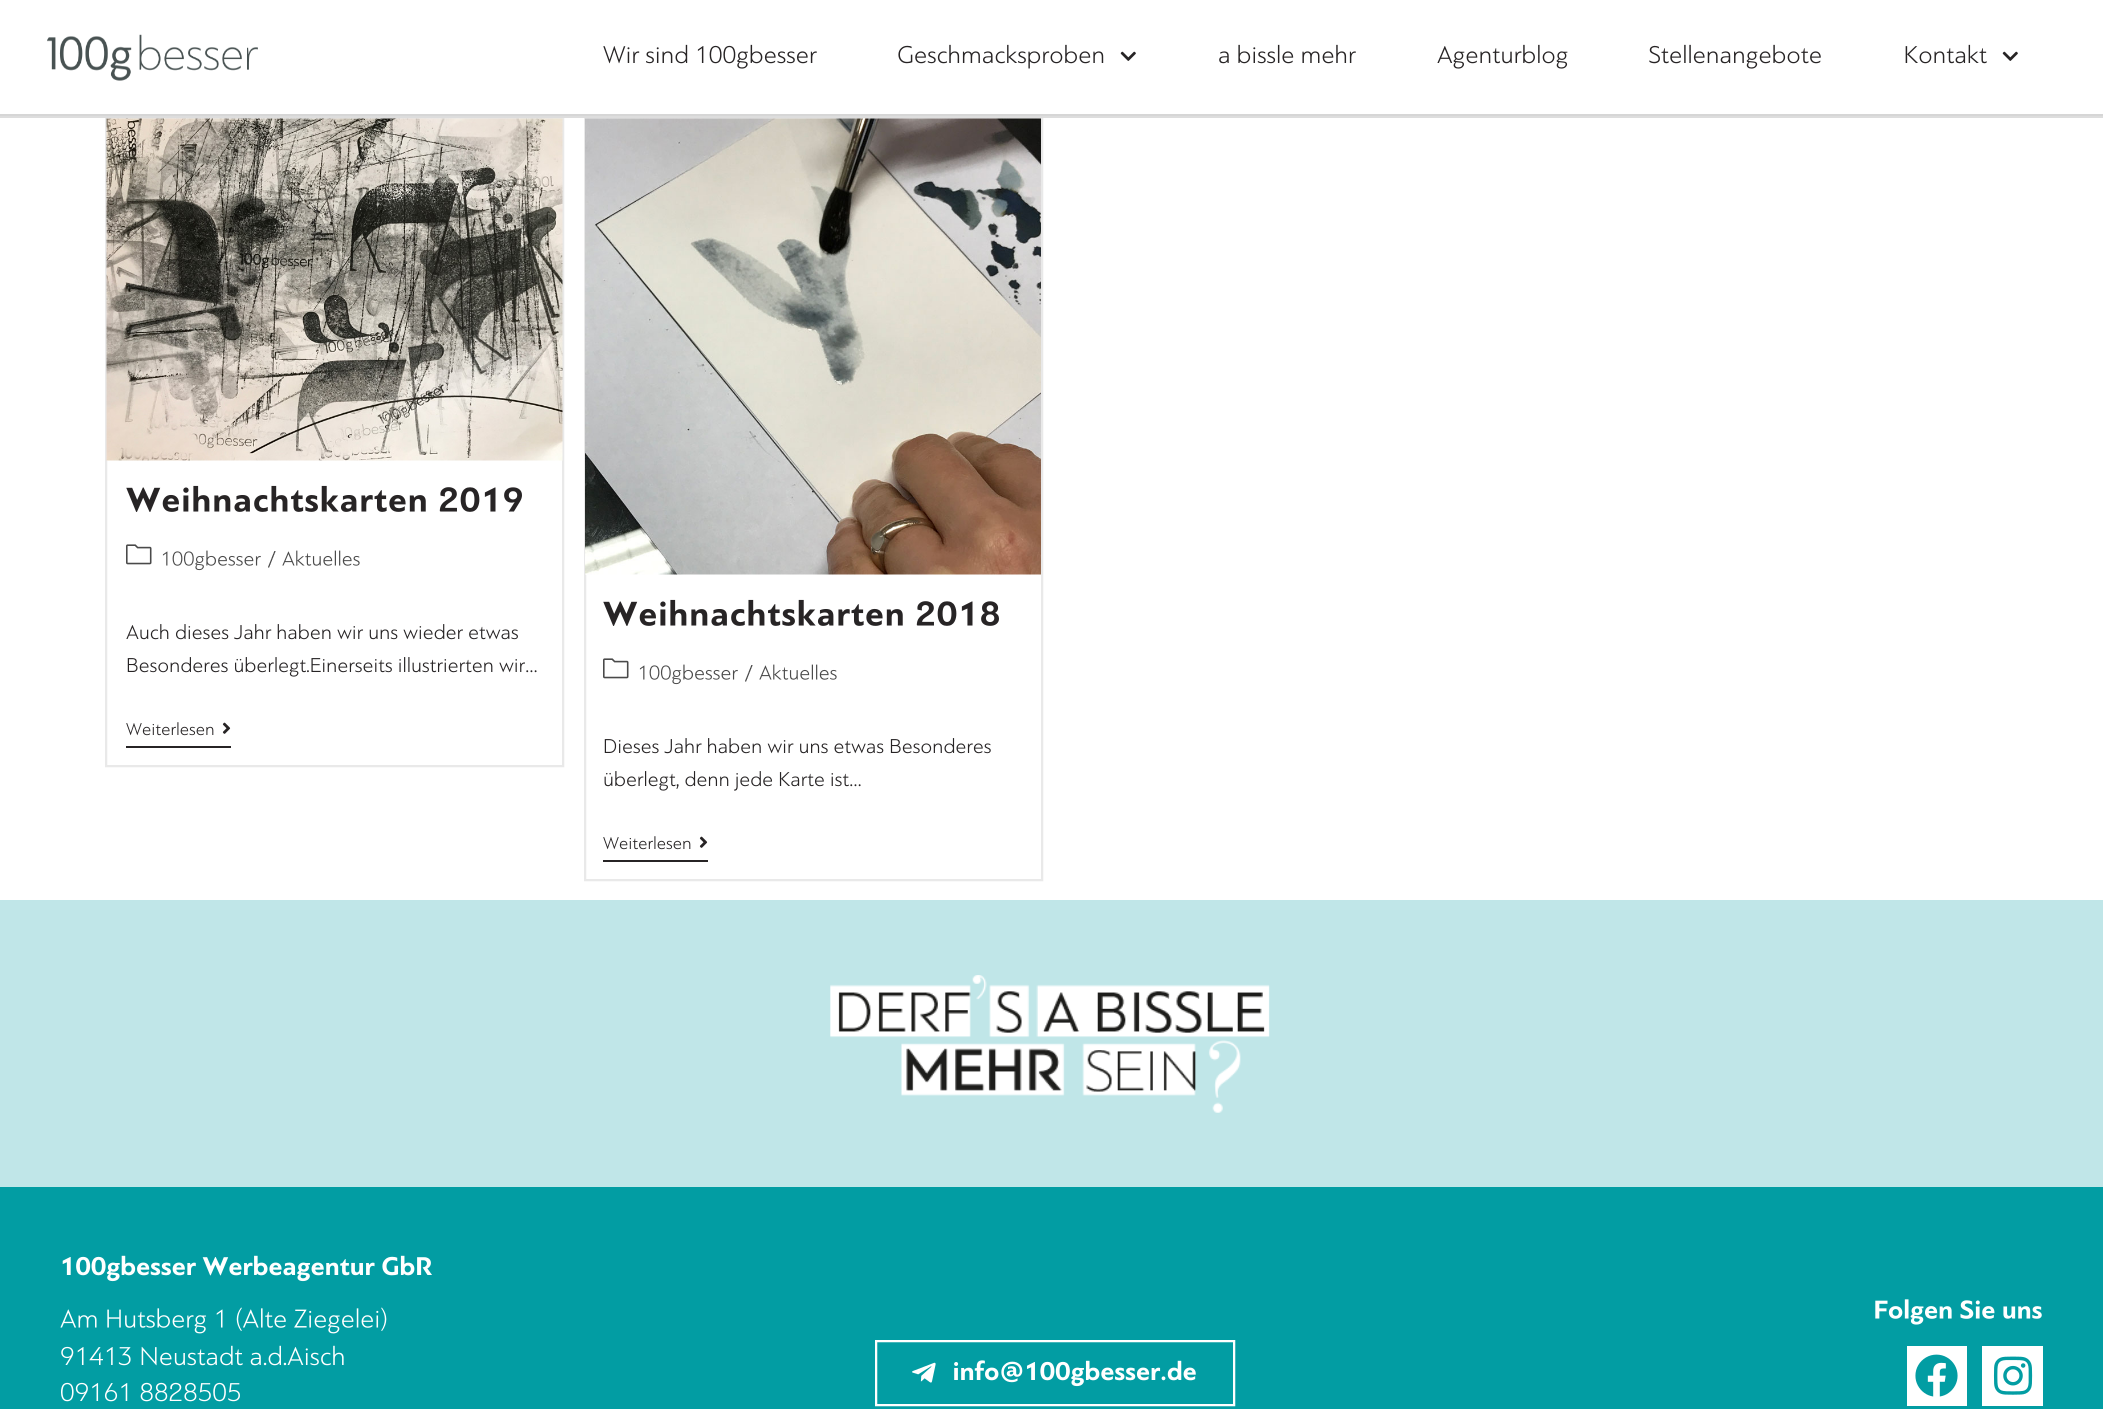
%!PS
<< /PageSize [2103 1409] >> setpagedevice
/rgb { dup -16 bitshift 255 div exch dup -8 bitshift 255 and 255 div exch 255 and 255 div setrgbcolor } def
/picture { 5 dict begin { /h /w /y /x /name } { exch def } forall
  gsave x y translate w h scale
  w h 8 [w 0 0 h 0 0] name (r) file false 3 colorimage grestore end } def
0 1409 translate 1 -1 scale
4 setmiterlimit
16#FFFFFF rgb
0 0 2103 1409 rectfill
16#E9E9E9 rgb
2 setlinewidth
106 118 457 648 rectstroke
585 118 457 762 rectstroke
16#DDDDDD rgb
0 116 2103 2 rectfill
16#D6D6D6 rgb
0 114 2103 2 rectfill
(pic1.raw) 47 34 211 47 picture
(pic2.raw) 603 44 214 25 picture
(pic3.raw) 898 44 206 25 picture
(pic4.raw) 1120 51 16 10 picture
(pic5.raw) 1219 44 137 20 picture
(pic6.raw) 1437 44 131 25 picture
(pic7.raw) 1649 44 172 25 picture
(pic8.raw) 1905 44 82 20 picture
(pic4.raw) 2002 51 16 10 picture
(pic9.raw) 106 118 457 343 picture
(pic10.raw) 126 485 396 27 picture
(pic11.raw) 126 544 26 21 picture
(pic12.raw) 162 550 99 21 picture
16#4A4A4A rgb
269 567.5 moveto 268 567.5 lineto 274.5 551 lineto 275.5 551 lineto closepath fill
(pic13.raw) 282 550 78 16 picture
(pic14.raw) 126 624 392 16 picture
(pic15.raw) 127 657 410 20 picture
16#272425 rgb
126 746 105 2 rectfill
(pic16.raw) 126 722 88 14 picture
(pic17.raw) 222 722 9 12 picture
(pic18.raw) 585 118 456 457 picture
(pic19.raw) 603 599 396 27 picture
(pic11.raw) 603 658 26 21 picture
(pic12.raw) 639 664 99 21 picture
16#4A4A4A rgb
746 681.5 moveto 745 681.5 lineto 751.5 665 lineto 752.5 665 lineto closepath fill
(pic13.raw) 759 664 78 16 picture
(pic20.raw) 604 738 387 16 picture
(pic21.raw) 604 771 257 20 picture
16#272425 rgb
603 860 105 2 rectfill
(pic16.raw) 603 836 88 14 picture
(pic17.raw) 699 836 9 12 picture
16#C0E6E8 rgb
0 900 2103 287 rectfill
(pic22.raw) 830 975 440 138 picture
16#029DA3 rgb
0 1187 2103 222 rectfill
(pic23.raw) 62 1255 370 27 picture
(pic24.raw) 60 1307 327 27 picture
(pic25.raw) 61 1345 283 21 picture
(pic26.raw) 61 1382 179 20 picture
16#FFFFFF rgb
876 1341 358 64 rectstroke
(pic27.raw) 912 1362 24 21 picture
(pic28.raw) 954 1360 242 27 picture
(pic29.raw) 1875 1299 167 26 picture
1907 1346 60 60 rectfill
(pic30.raw) 1915 1354 43 43 picture
1982 1346 61 60 rectfill
(pic31.raw) 1993 1356 40 39 picture
showpage
